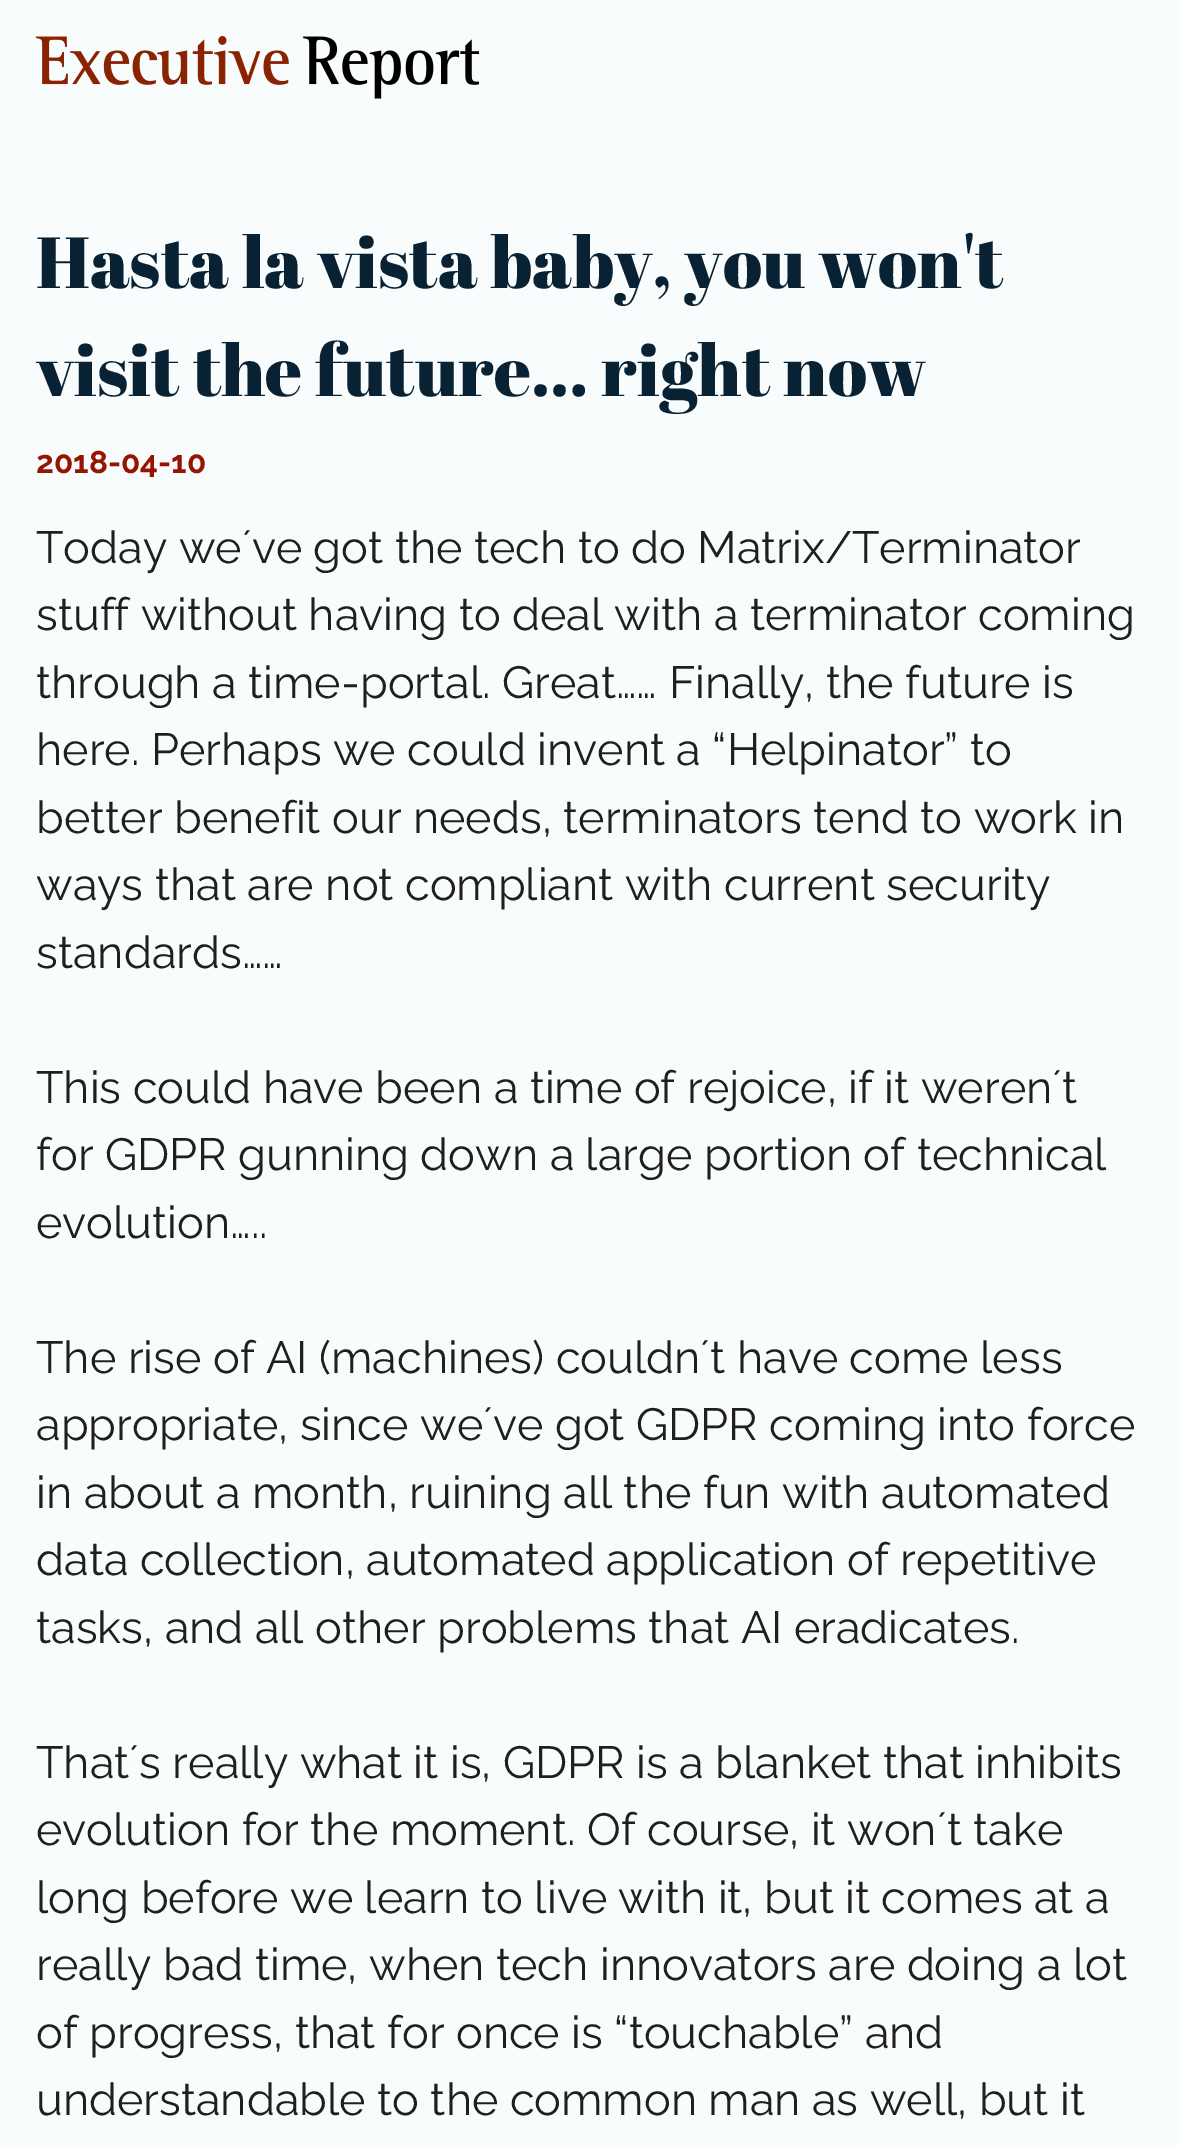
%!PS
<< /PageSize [1180 2146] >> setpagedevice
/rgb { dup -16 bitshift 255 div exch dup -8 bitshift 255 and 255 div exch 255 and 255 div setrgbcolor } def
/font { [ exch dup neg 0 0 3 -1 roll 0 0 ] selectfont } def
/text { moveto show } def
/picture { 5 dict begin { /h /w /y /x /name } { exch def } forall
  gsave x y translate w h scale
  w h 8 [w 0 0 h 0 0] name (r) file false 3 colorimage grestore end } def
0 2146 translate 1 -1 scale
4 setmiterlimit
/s1 { /AbrilFatface-Regular 72 font 16#082234 rgb } def
/s2 { /Raleway-Bold 31.5 font 16#951500 rgb } def
/s3 { /Raleway-Regular 45 font 16#1F1F1F rgb } def
16#F9FCFD rgb
0 0 1180 2146 rectfill
(pic1.raw) 36 36 443 63 picture
s1
(Hasta la vista baby, you won't) 36 288 text
(visit the future… right now) 36 396 text
s2
(2018-04-10) 36 473 text
s3
(Today we´ve got the tech to do Matrix/Terminator) 36 563 text
(stuff without having to deal with a terminator coming) 36 630 text
(through a time-portal. Great…… Finally, the future is) 36 698 text
(here. Perhaps we could invent a “Helpinator” to) 36 765 text
(better benefit our needs, terminators tend to work in) 36 833 text
(ways that are not compliant with current security) 36 900 text
(standards……) 36 968 text
(This could have been a time of rejoice, if it weren´t) 36 1103 text
(for GDPR gunning down a large portion of technical) 36 1170 text
(evolution…..) 36 1238 text
(The rise of AI \(machines\) couldn´t have come less) 36 1373 text
(appropriate, since we´ve got GDPR coming into force) 36 1440 text
(in about a month, ruining all the fun with automated) 36 1508 text
(data collection, automated application of repetitive) 36 1575 text
(tasks, and all other problems that AI eradicates.) 36 1643 text
(That´s really what it is, GDPR is a blanket that inhibits) 36 1778 text
(evolution for the moment. Of course, it won´t take) 36 1845 text
(long before we learn to live with it, but it comes at a) 36 1913 text
(really bad time, when tech innovators are doing a lot) 36 1980 text
(of progress, that for once is “touchable” and) 36 2048 text
(understandable to the common man as well, but it) 36 2115 text
showpage
